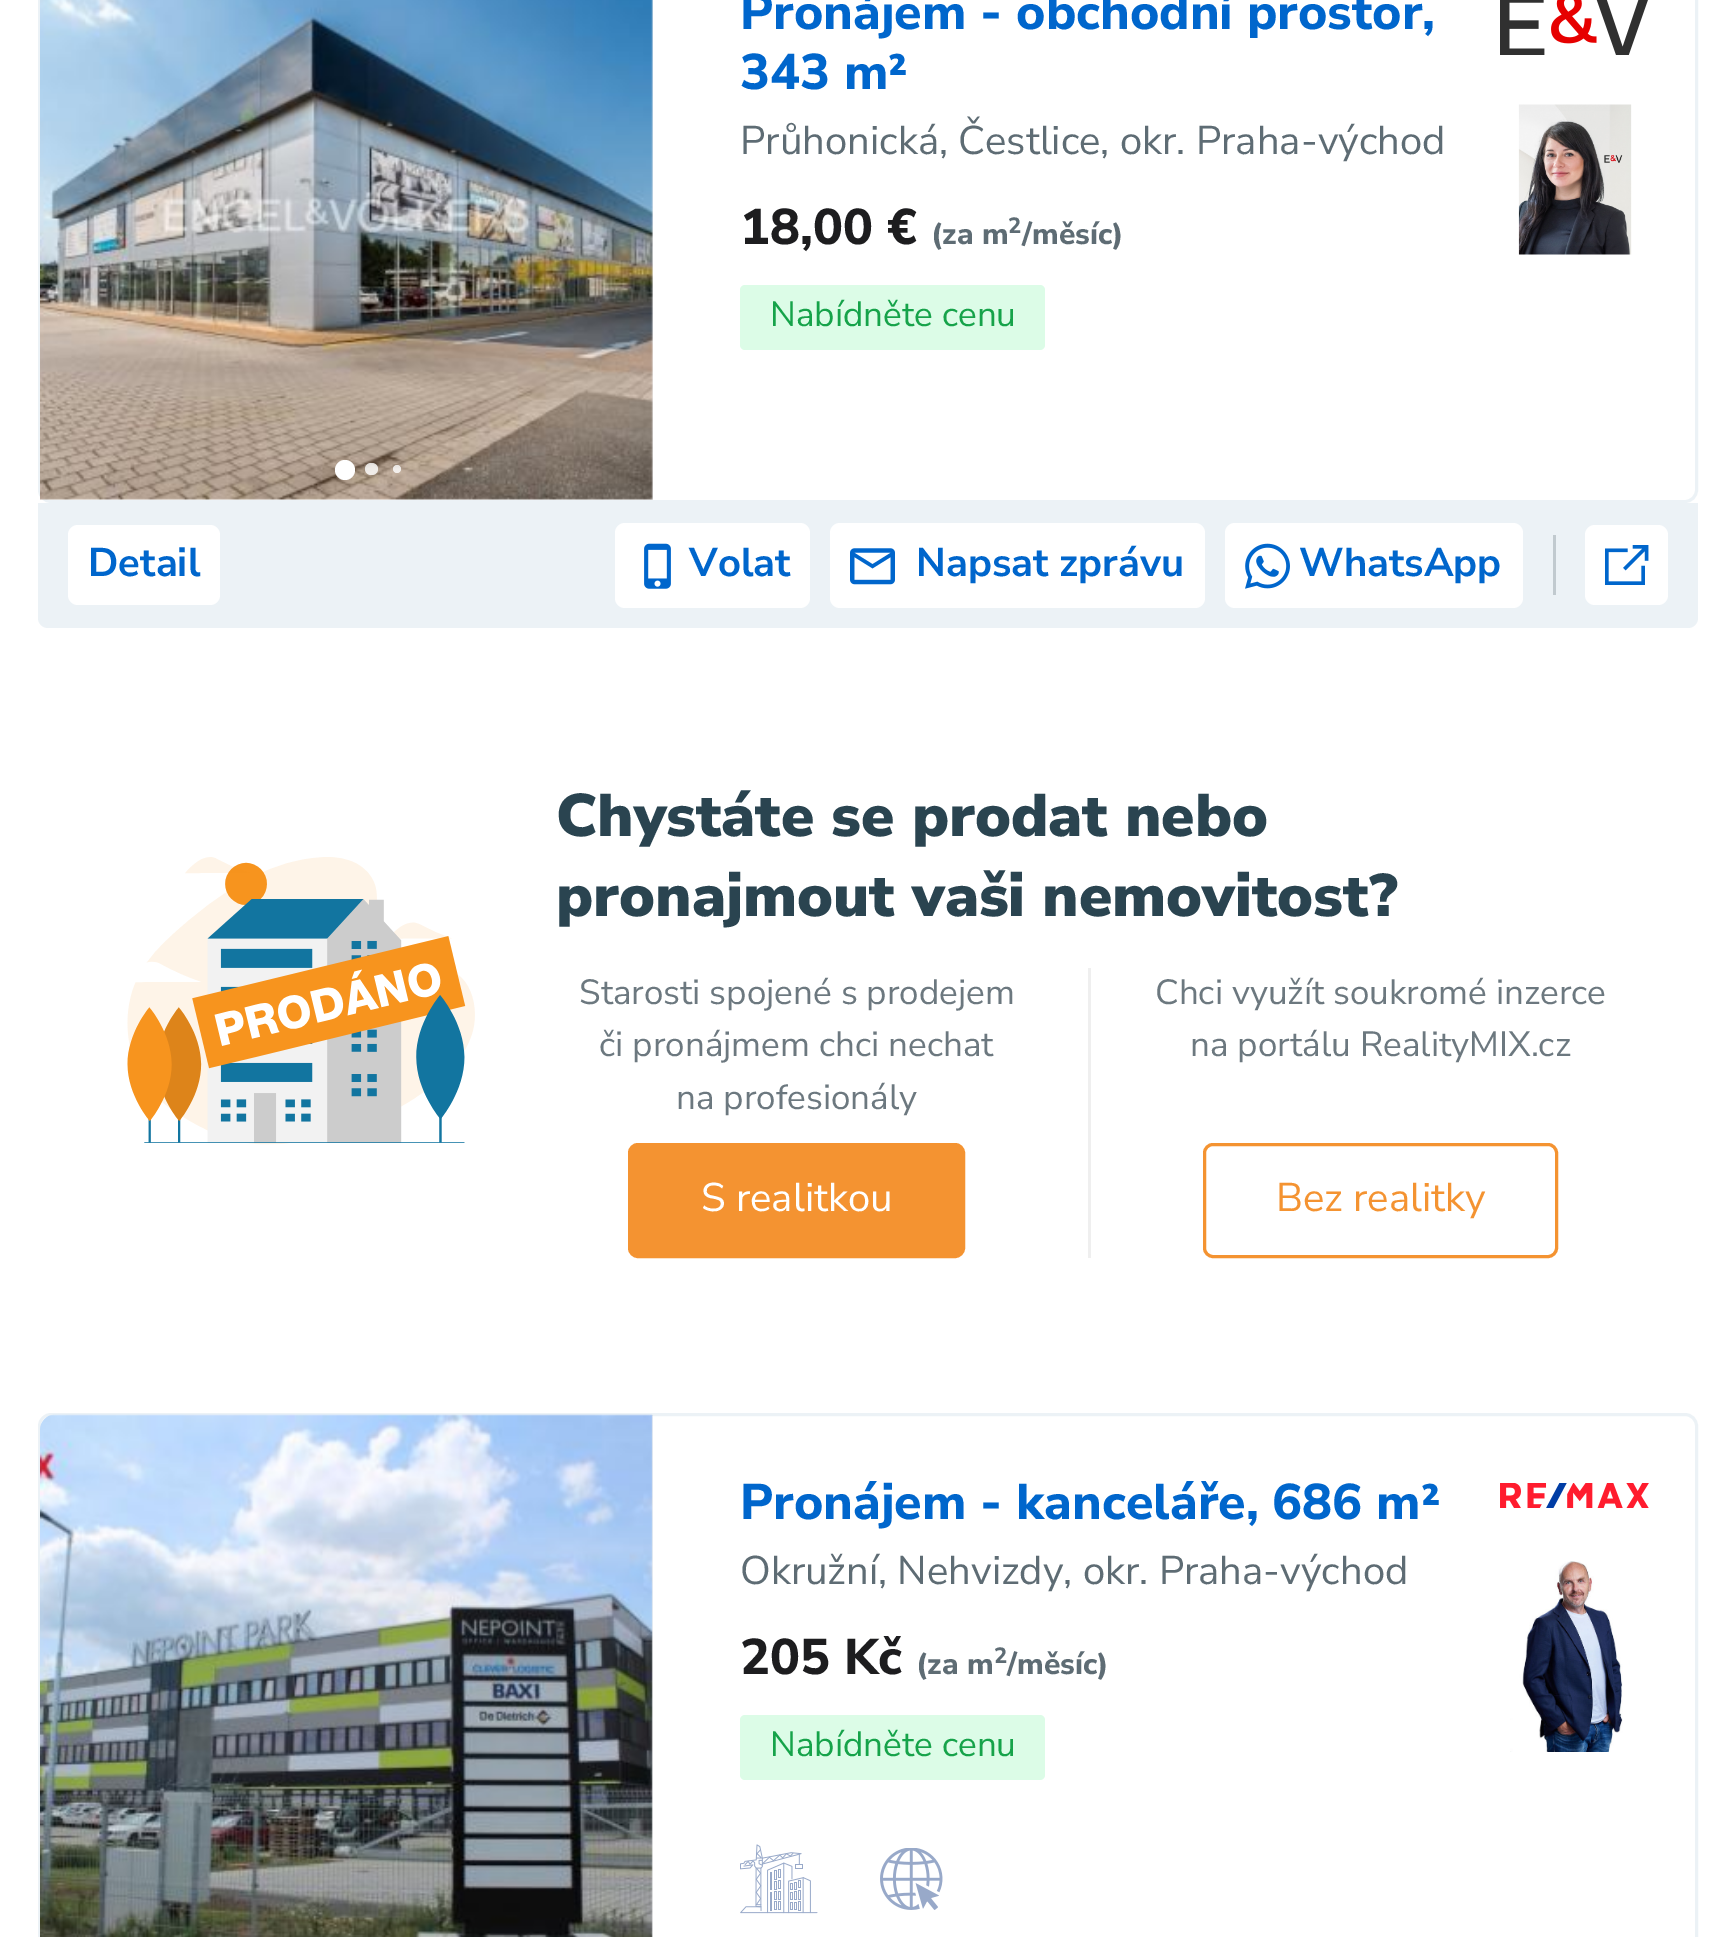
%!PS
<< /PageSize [1735 1937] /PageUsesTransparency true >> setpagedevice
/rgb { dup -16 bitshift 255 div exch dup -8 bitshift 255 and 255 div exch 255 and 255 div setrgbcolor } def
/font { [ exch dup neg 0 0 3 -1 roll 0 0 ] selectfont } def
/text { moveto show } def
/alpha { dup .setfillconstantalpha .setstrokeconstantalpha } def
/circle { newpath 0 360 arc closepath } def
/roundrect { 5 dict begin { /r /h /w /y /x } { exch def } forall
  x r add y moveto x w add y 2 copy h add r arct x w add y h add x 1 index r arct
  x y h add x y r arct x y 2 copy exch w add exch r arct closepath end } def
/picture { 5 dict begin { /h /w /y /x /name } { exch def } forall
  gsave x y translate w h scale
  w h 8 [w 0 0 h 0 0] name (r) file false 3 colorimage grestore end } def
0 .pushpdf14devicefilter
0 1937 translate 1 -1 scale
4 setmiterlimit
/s1 { /NunitoSans-ExtraBold 50 font 16#0066CC rgb } def
/s2 { /NunitoSans-Regular 40 font 16#5E6C74 rgb } def
/s3 { /NunitoSans-ExtraBold 50 font 16#1D1D1F rgb } def
/s4 { /NunitoSans-ExtraBold 30 font 16#5E6C74 rgb } def
/s5 { /NunitoSans-ExtraBold 22 font 16#5E6C74 rgb } def
/s6 { /NunitoSans-Regular 35 font 16#16A34A rgb } def
/s7 { /NunitoSans-Bold 40 font 16#0066CC rgb } def
/s8 { /NunitoSans-Black 60 font 16#2A4450 rgb } def
/s9 { /NunitoSans-Regular 35 font 16#6C787F rgb } def
/s10 { /NunitoSans-Regular 40 font 16#FFFFFF rgb } def
/s11 { /NunitoSans-Regular 40 font 16#F49331 rgb } def
16#FFFFFF rgb
0 0 1735 1937 rectfill
16#ECF2F6 rgb
3 setlinewidth
39.5 -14.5 1657 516 11.5 roundrect stroke
16#EFF0F1 rgb
650 0 3 500 rectfill
(pic1.raw) 40 0 613 500 picture
16#FFFFFF rgb
345 470 10 circle fill
0.8 alpha
365 463 13 12 6 roundrect fill
397 469 4 circle fill
1 alpha
s1
(Pronájem - obchodní prostor,) 740 29 text
(343 m²) 740 89 text
s2
(Průhonická, Čestlice, okr. Praha-východ) 740 154 text
(pic2.raw) 1500 0 148 55 picture
(pic3.raw) 1518 104 114 151 picture
s3
(18,00 €) 740 244 text
s4
(\(za m) 931 244 text
s5
(2) 1008 233 text
s4
(/měsíc\)) 1022 244 text
16#DCFCE7 rgb
740 285 305 65 5 roundrect fill
s6
(Nabídněte cenu) 770 326 text
16#ECF2F6 rgb
38 503 moveto 1698 503 lineto 1698 618 lineto 1698 623.5 1693.5 628 1688 628 curveto 48 628 lineto 42.5 628 38 623.5 38 618 curveto closepath fill
16#FFFFFF rgb
68 525 152 80 10 roundrect fill
s7
(Detail) 88 576 text
16#FFFFFF rgb
615 523 195 85 10 roundrect fill
(pic4.raw) 644 543 27 46 picture
s7
(Volat) 689 576 text
16#FFFFFF rgb
830 523 375 85 10 roundrect fill
(pic5.raw) 850 548 45 37 picture
s7
(Napsat zprávu) 916 576 text
16#FFFFFF rgb
1225 523 298 85 10 roundrect fill
(pic6.raw) 1245 543 45 46 picture
s7
(WhatsApp) 1299 576 text
16#C1CACF rgb
1553 535 3 60 rectfill
16#FFFFFF rgb
1585 525 83 80 10 roundrect fill
(pic7.raw) 1605 545 44 40 picture
(pic8.raw) 127 857 348 288 picture
s8
(Chystáte se prodat nebo) 556 836 text
(pronajmout vaši nemovitost?) 556 916 text
16#EFEFEF rgb
1088 968 3 290 rectfill
s9
(Starosti spojené s prodejem) 579 1004 text
(či pronájmem chci nechat) 599 1056 text
(na profesionály) 676 1109 text
16#F49331 rgb
629.5 1144.5 334 112 8.5 roundrect gsave fill grestore
stroke
s10
(S realitkou) 701 1211 text
s9
(Chci využít soukromé inzerce) 1155 1004 text
(na portálu RealityMIX.cz) 1190 1056 text
16#F49331 rgb
1204.5 1144.5 352 112 8.5 roundrect stroke
s11
(Bez realitky) 1276 1211 text
16#ECF2F6 rgb
39.5 1414.5 1657 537 11.5 roundrect stroke
0.1 alpha
16#5E6C74 rgb
650 1415 3 522 rectfill
1 alpha
(pic9.raw) 40 1414 613 523 picture
s1
(Pronájem - kanceláře, 686 m²) 740 1519 text
s2
(Okružní, Nehvizdy, okr. Praha-východ) 740 1584 text
(pic10.raw) 1500 1483 149 25 picture
(pic11.raw) 1510 1561 113 191 picture
s3
(205 Kč) 740 1674 text
s4
(\(za m) 916 1674 text
(/měsíc\)) 1007 1674 text
s5
(2) 994 1663 text
16#DCFCE7 rgb
740 1715 305 65 5 roundrect fill
s6
(Nabídněte cenu) 770 1756 text
(pic12.raw) 740 1844 78 70 picture
(pic13.raw) 880 1848 63 62 picture
.poppdf14devicefilter showpage
